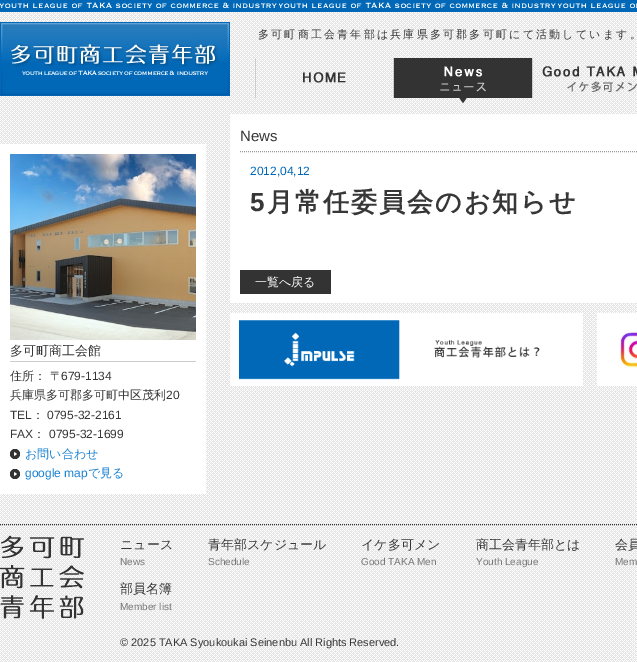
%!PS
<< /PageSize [637 662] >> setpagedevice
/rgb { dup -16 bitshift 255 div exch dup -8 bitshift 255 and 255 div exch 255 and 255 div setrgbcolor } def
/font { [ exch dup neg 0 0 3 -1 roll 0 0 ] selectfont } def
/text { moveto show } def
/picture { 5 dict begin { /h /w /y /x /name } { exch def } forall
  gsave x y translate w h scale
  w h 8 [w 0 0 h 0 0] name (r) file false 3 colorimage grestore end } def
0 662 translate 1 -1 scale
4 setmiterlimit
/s1 { /LiberationSans-Regular 15 font 16#373737 rgb } def
/s2 { /LiberationSans-Regular 12 font 16#0068B7 rgb } def
/s3 { /WenQuanYiZenHei-Medium 12 font 16#FFFFFF rgb } def
/s4 { /WenQuanYiZenHei-Medium 13 font 16#373737 rgb } def
/s5 { /WenQuanYiZenHei-Medium 12 font 16#373737 rgb } def
/s6 { /LiberationSans-Regular 12 font 16#373737 rgb } def
/s7 { /WenQuanYiZenHei-Medium 12 font 16#1982D1 rgb } def
/s8 { /LiberationSans-Regular 12 font 16#1982D1 rgb } def
/s9 { /LiberationSans-Regular 10 font 16#777777 rgb } def
/s10 { /LiberationSans-Regular 11 font 16#373737 rgb } def
16#FFFFFF rgb
0 0 637 662 rectfill
(pic1.raw) 0 12 637 650 picture
(pic2.raw) 0 0 637 12 picture
(pic3.raw) 0 22 230 74 picture
/WenQuanYiZenHei-Medium 11 font
16#373737 rgb
258 38 moveto 2.2 0 (多可町商工会青年部は兵庫県多可郡多可町にて活動しています。) ashow
(pic4.raw) 255 58 139 40 picture
(pic5.raw) 394 58 139 45 picture
(pic6.raw) 542 66 95 26 picture
16#FFFFFF rgb
230 114 407 189 rectfill
16#999999 rgb
[1 1] 0 setdash
240 151.5 moveto 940 151.5 lineto stroke
s1
(News) 240 141 text
s2
(2012,04,12) 250 175 text
/LiberationSans-Bold 26 font
16#373737 rgb
250 211 moveto 2 0 (5) ashow
/WenQuanYiZenHei-Bold 26 font
267 211 moveto 2 0 (月常任委員会のお知らせ) ashow
16#333333 rgb
240 270 91 24 rectfill
s3
(一覧へ戻る) 255 286 text
(pic7.raw) 230 313 353 73 picture
(pic8.raw) 597 313 40 73 picture
0 144 206 350 rectfill
(pic9.raw) 10 154 186 186 picture
16#CCCCCC rgb
10 361 186 1 rectfill
s4
(多可町商工会館) 10 355 text
s5
(住所： 〒) 10 380 text
s6
(679-1134) 61 380 text
s5
(兵庫県多可郡多可町中区茂利) 10 399 text
s6
(20) 166 399 text
(TEL) 10 419 text
s5
(：) 32 419 text
s6
(0795-32-2161) 47 419 text
(FAX) 10 438 text
s5
(：) 33 438 text
s6
(0795-32-1699) 49 438 text
(pic10.raw) 10 449 10 10 picture
s7
(お問い合わせ) 25 458 text
(pic10.raw) 10 469 10 10 picture
s8
(google map) 25 477 text
s7
(で見る) 88 477 text
16#333333 rgb
0 524.5 moveto 637 524.5 lineto stroke
(pic11.raw) 0 535 84 84 picture
s4
(ニュース) 120 549 text
(青年部スケジュール) 208 549 text
(イケ多可メン) 361 549 text
(商工会青年部とは) 476 549 text
(会員) 615 549 text
s9
(News) 120 565 text
(Schedule) 208 565 text
(Good TAKA Men) 361 565 text
(Youth League) 476 565 text
(Mem) 615 565 text
s4
(部員名簿) 120 593 text
s9
(Member list) 120 610 text
s10
(© 2025 TAKA Syoukoukai Seinenbu All Rights Reserved.) 120 646 text
showpage
